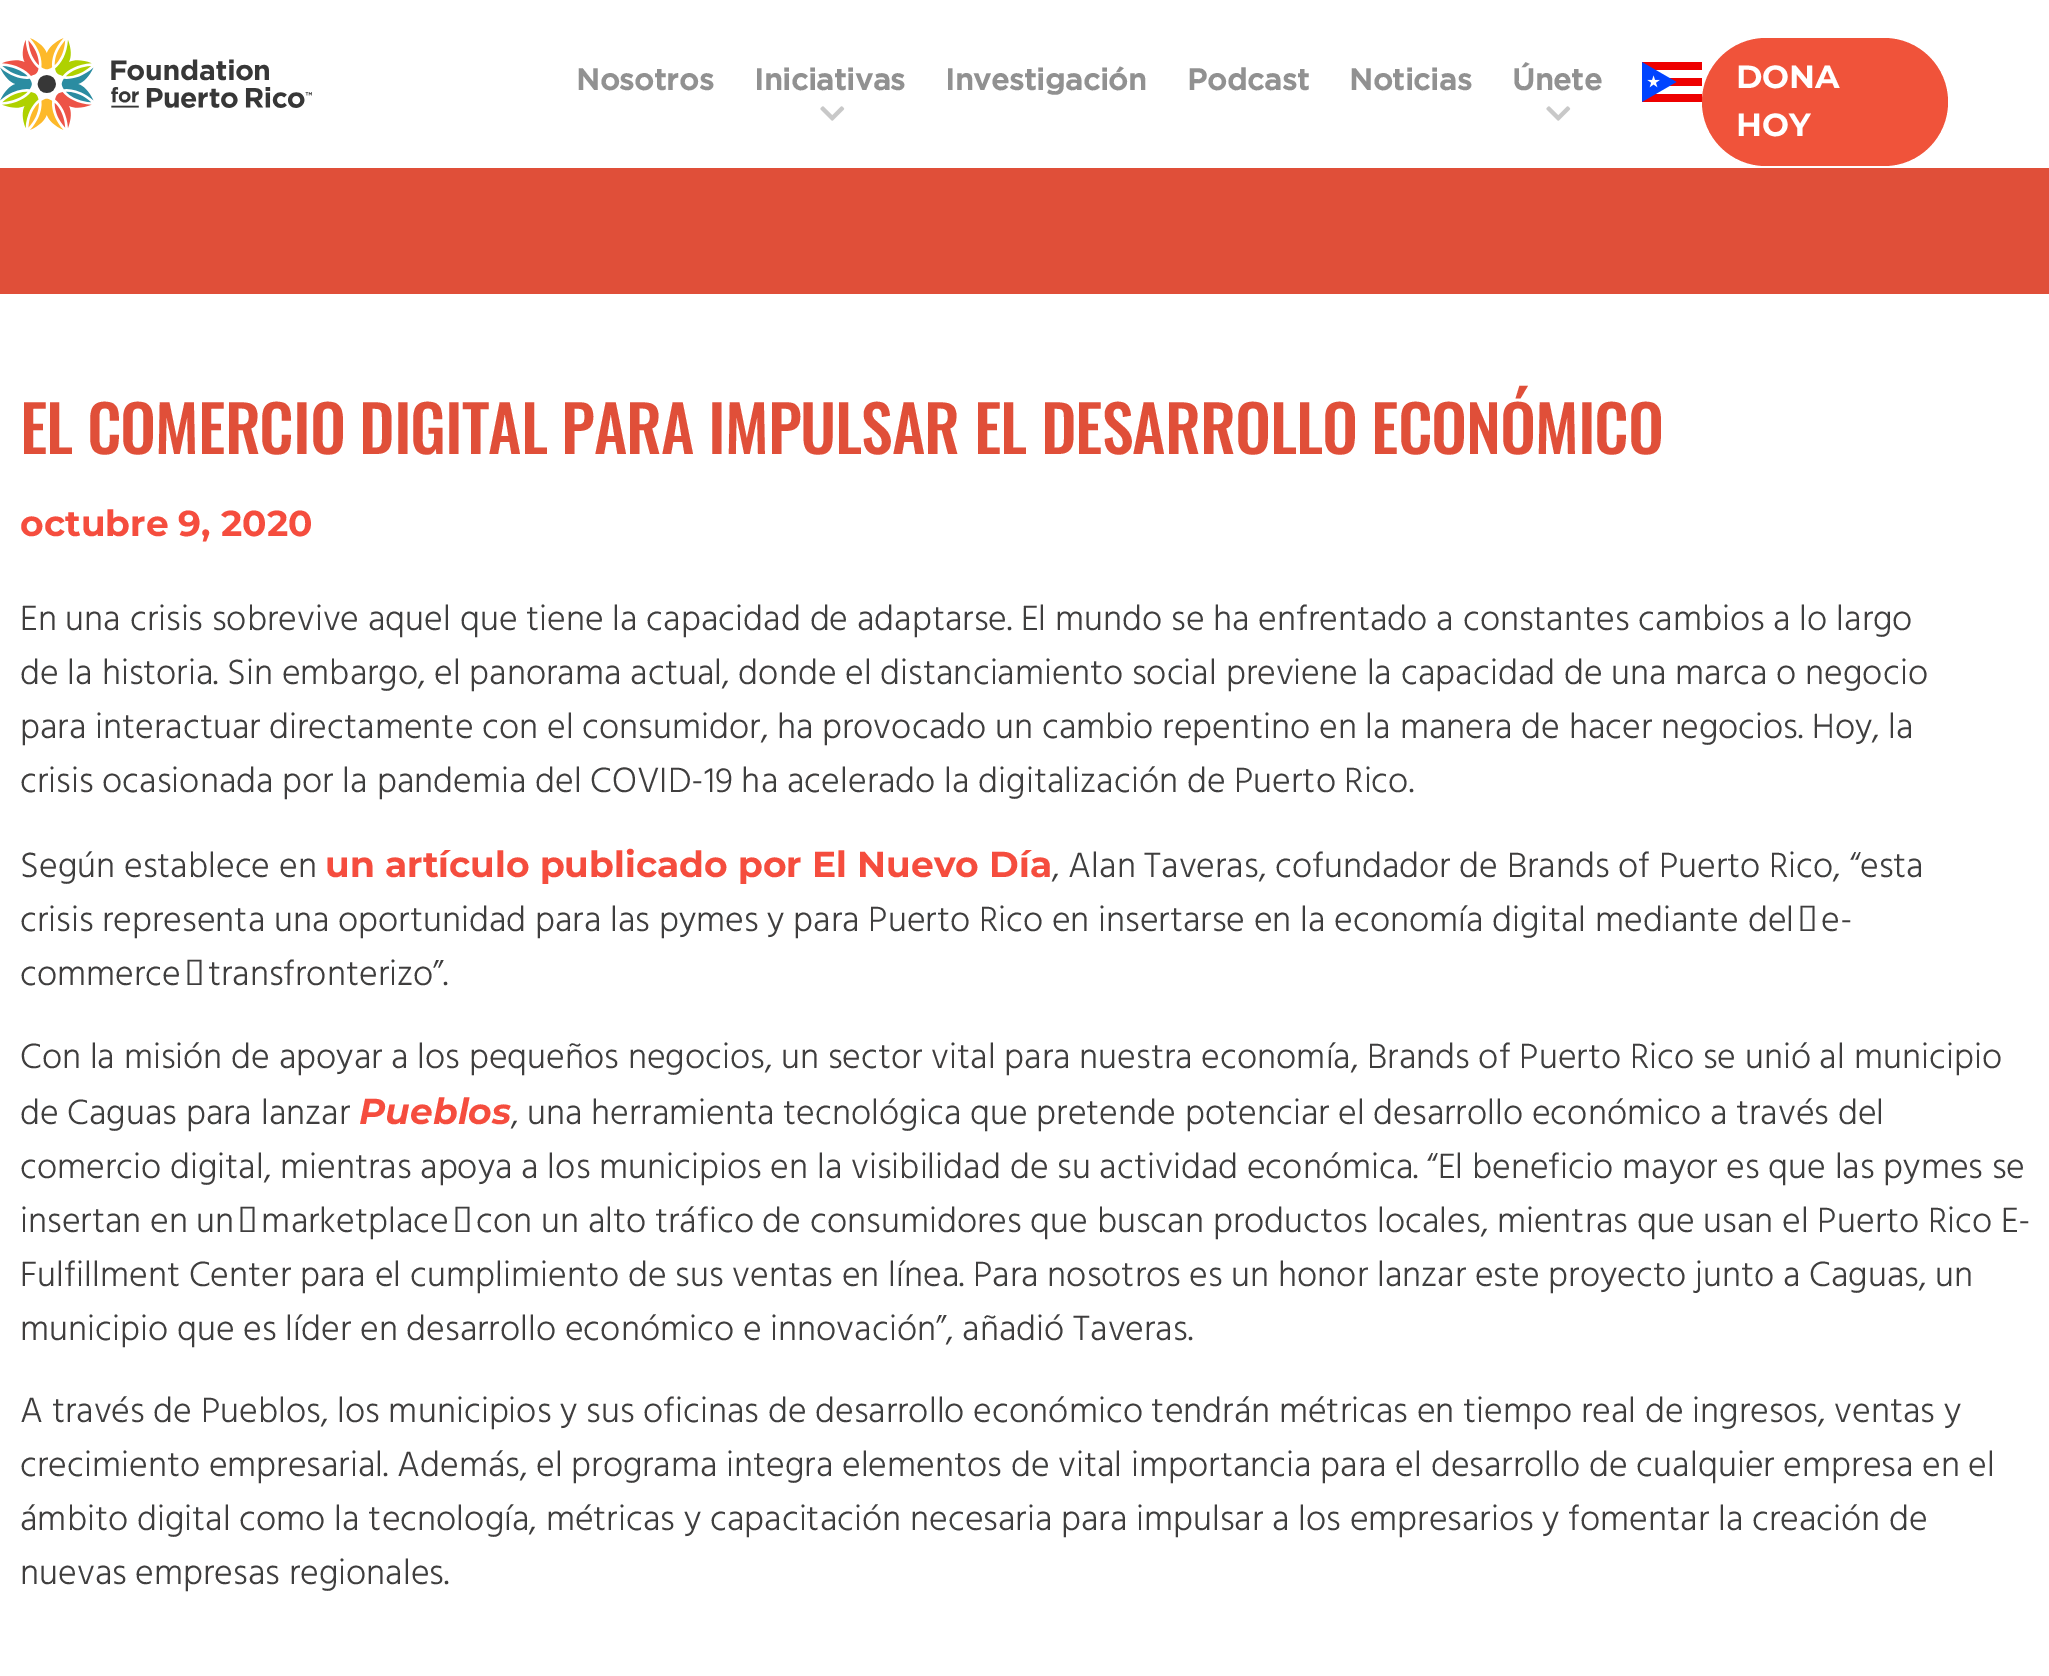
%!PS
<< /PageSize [2049 1676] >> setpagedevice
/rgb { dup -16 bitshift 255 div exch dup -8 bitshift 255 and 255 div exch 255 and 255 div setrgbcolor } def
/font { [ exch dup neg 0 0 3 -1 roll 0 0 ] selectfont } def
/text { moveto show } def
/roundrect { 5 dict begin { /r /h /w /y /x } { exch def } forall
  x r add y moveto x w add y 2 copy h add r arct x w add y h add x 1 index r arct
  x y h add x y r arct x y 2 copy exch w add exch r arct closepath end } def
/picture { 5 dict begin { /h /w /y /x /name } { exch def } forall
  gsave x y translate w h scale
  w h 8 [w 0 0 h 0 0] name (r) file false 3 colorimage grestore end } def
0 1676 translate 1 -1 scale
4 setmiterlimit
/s1 { /Gotham-Bold 30 font 16#919191 rgb } def
/s2 { /Montserrat-Bold 32 font 16#FFFFFF rgb } def
/s3 { /Montserrat-Bold 36 font 16#F54D3E rgb } def
/s4 { /Hind-Light 36 font 16#3F3E3E rgb } def
/s5 { /Montserrat-BoldItalic 36 font 16#F54D3E rgb } def
16#FFFFFF rgb
0 0 2049 1676 rectfill
(pic1.raw) 0 38 312 92 picture
s1
(Nosotros) 576 90 text
(Iniciativas) 754 90 text
(pic2.raw) 820 106 25 15 picture
(Investigación) 945 90 text
(Podcast) 1187 90 text
(Noticias) 1349 90 text
(Únete) 1512 90 text
(pic2.raw) 1546 106 25 15 picture
(pic3.raw) 1642 62 60 40 picture
16#F0533A rgb
1702 38 246 128 64 roundrect fill
s2
(DONA) 1736 88 text
(HOY) 1736 136 text
16#E04F39 rgb
0 168 2049 126 rectfill
/Oswald-Medium 64 font
20 454 moveto -1 0 (EL COMERCIO DIGITAL PARA IMPULSAR EL DESARROLLO ECONÓMICO) ashow
s3
(octubre 9, 2020) 20 536 text
s4
(En una crisis sobrevive aquel que tiene la capacidad de adaptarse. El mundo se ha enfrentado a constantes cambios a lo largo) 20 630 text
(de la historia. Sin embargo, el panorama actual, donde el distanciamiento social previene la capacidad de una marca o negocio) 20 684 text
(para interactuar directamente con el consumidor, ha provocado un cambio repentino en la manera de hacer negocios. Hoy, la) 20 738 text
(crisis ocasionada por la pandemia del COVID-19 ha acelerado la digitalización de Puerto Rico.) 20 792 text
(Según establece en) 20 877 text
s3
(un artículo publicado por El Nuevo Día) 325 877 text
s4
(, Alan Taveras, cofundador de Brands of Puerto Rico, “esta) 1052 877 text
(crisis representa una oportunidad para las pymes y para Puerto Rico en insertarse en la economía digital mediante del e-) 20 931 text
(commerce transfronterizo”.) 20 985 text
(Con la misión de apoyar a los pequeños negocios, un sector vital para nuestra economía, Brands of Puerto Rico se unió al municipio) 20 1068 text
(de Caguas para lanzar) 20 1124 text
s5
(Pueblos) 359 1124 text
s4
(, una herramienta tecnológica que pretende potenciar el desarrollo económico a través del) 511 1124 text
(comercio digital, mientras apoya a los municipios en la visibilidad de su actividad económica. “El beneficio mayor es que las pymes se) 20 1178 text
(insertan en un marketplace con un alto tráfico de consumidores que buscan productos locales, mientras que usan el Puerto Rico E-) 20 1232 text
(Fulfillment Center para el cumplimiento de sus ventas en línea. Para nosotros es un honor lanzar este proyecto junto a Caguas, un) 20 1286 text
(municipio que es líder en desarrollo económico e innovación”, añadió Taveras.) 20 1340 text
(A través de Pueblos, los municipios y sus oficinas de desarrollo económico tendrán métricas en tiempo real de ingresos, ventas y) 20 1422 text
(crecimiento empresarial. Además, el programa integra elementos de vital importancia para el desarrollo de cualquier empresa en el) 20 1476 text
(ámbito digital como la tecnología, métricas y capacitación necesaria para impulsar a los empresarios y fomentar la creación de) 20 1530 text
(nuevas empresas regionales.) 20 1584 text
showpage
